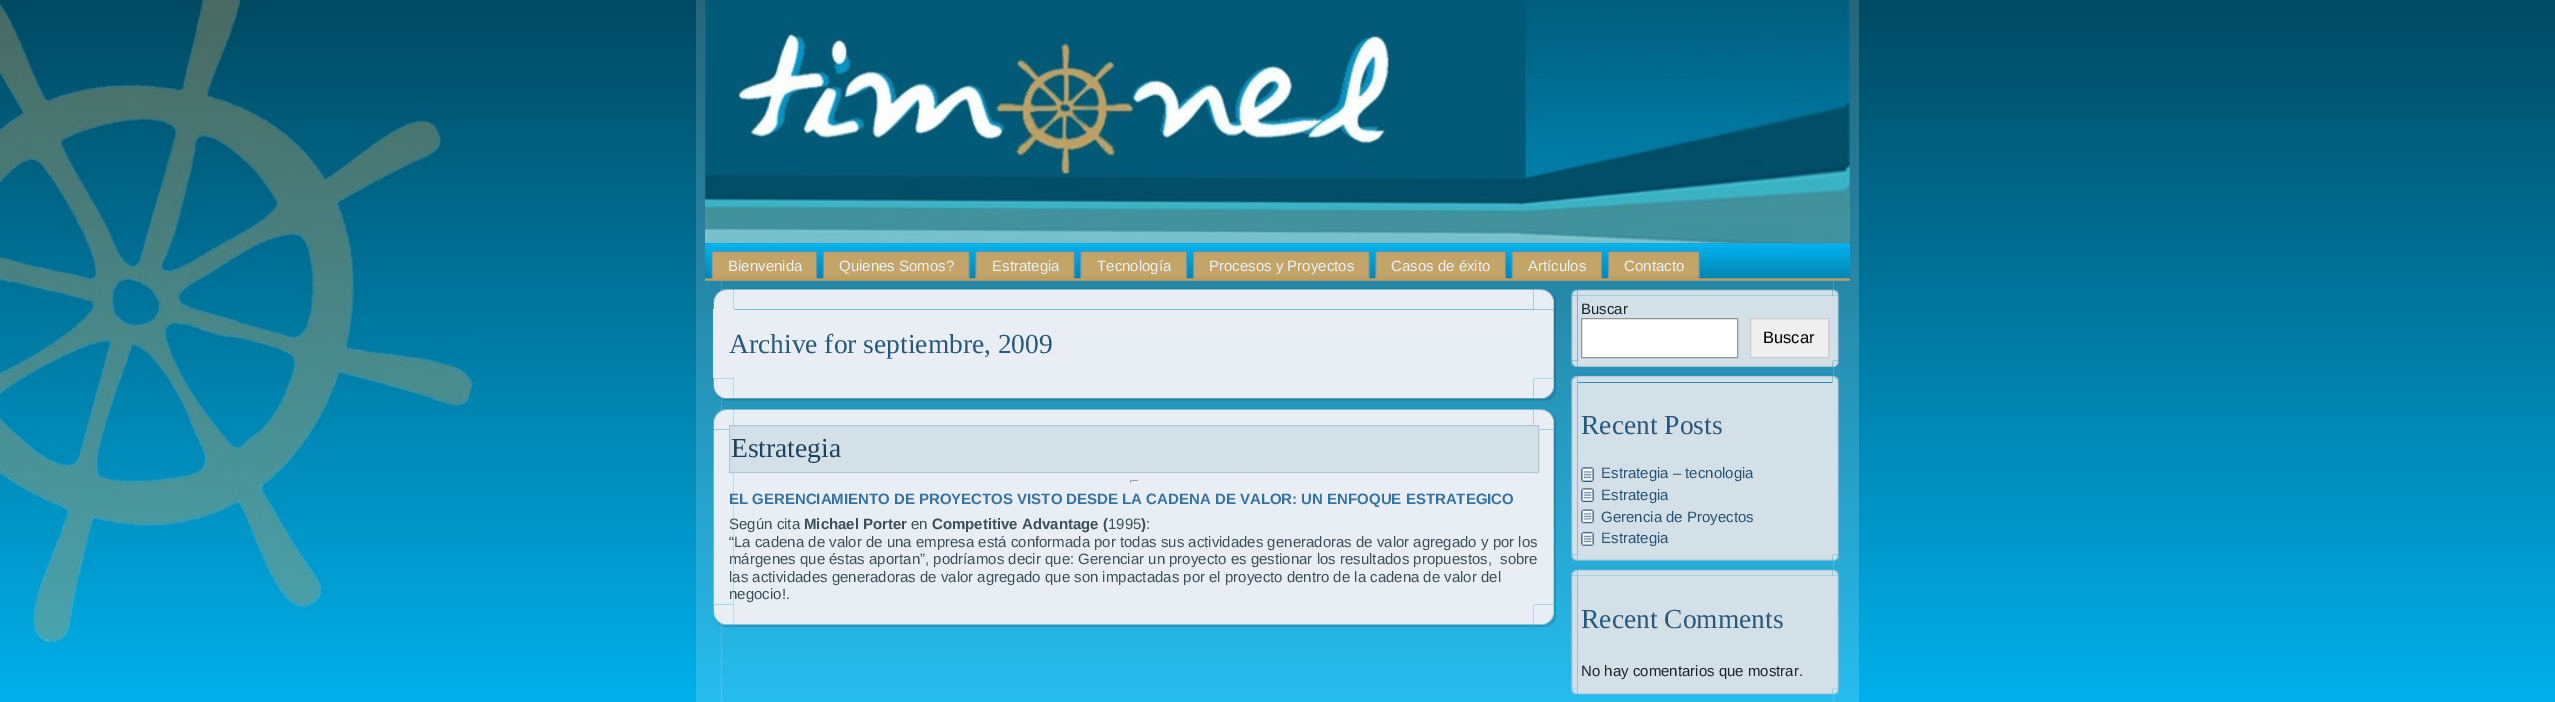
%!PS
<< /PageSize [2555 702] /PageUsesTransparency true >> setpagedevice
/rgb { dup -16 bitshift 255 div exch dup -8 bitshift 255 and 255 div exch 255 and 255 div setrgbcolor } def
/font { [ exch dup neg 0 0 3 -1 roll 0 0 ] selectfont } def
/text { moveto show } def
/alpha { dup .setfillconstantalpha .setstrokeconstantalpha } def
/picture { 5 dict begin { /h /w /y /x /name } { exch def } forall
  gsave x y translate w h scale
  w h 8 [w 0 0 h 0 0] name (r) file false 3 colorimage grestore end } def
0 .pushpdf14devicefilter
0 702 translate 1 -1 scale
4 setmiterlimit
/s1 { /LiberationSans-Regular 15 font 16#E8F1F7 rgb } def
/s2 { /LiberationSerif-Regular 27.5 font 16#29577A rgb } def
/s3 { /LiberationSerif-Regular 27.5 font 16#1F415C rgb } def
/s4 { /LiberationSans-Bold 15 font 16#3672A1 rgb } def
/s5 { /LiberationSans-Regular 15 font 16#3C4E58 rgb } def
/s6 { /LiberationSans-Bold 15 font 16#3C4E58 rgb } def
/s7 { /LiberationSans-Regular 15 font 16#1B2327 rgb } def
/s8 { /LiberationSans-Regular 16.5 font 16#000000 rgb } def
/s9 { /LiberationSans-Regular 15 font 16#265273 rgb } def
16#FFFFFF rgb
0 0 2555 702 rectfill
(pic1.raw) 0 0 2555 702 picture
(pic2.raw) 0 0 477 643 picture
0.15 alpha
696 0 26 702 rectfill
1833 0 26 702 rectfill
721 243 1113 459 rectfill
1 alpha
(pic3.raw) 705 0 1145 244 picture
(pic4.raw) 723 0 1110 225 picture
(pic5.raw) 705 243 1145 38 picture
(pic6.raw) 711 250 106 31 picture
s1
(Bienvenida) 728 271 text
(pic7.raw) 816 251 2 30 picture
(pic8.raw) 822 250 147 31 picture
(Quienes Somos?) 839 271 text
(pic9.raw) 968 250 2 31 picture
(pic10.raw) 975 250 99 31 picture
(Estrategia) 992 271 text
(pic9.raw) 1073 250 2 31 picture
(pic11.raw) 1080 250 107 31 picture
(Tecnología) 1097 271 text
(pic7.raw) 1186 251 2 30 picture
(pic12.raw) 1192 250 177 31 picture
(Procesos y Proyectos) 1209 271 text
(pic9.raw) 1368 250 2 31 picture
(pic13.raw) 1375 250 130 31 picture
(pic14.raw) 1505 250 2 31 picture
(Casos de éxito) 1391 271 text
(pic15.raw) 1511 250 91 31 picture
(Artículos) 1528 271 text
(pic7.raw) 1601 251 2 30 picture
(pic16.raw) 1607 250 92 31 picture
(Contacto) 1624 271 text
(pic9.raw) 1698 250 2 31 picture
(pic17.raw) 713 289 21 20 picture
(pic19.raw) 1533 289 23 21 picture
(pic18.raw) 734 288 800 22 picture
16#E8EEF3 rgb
713 309 21 69 rectfill
(pic20.raw) 1533 309 23 69 picture
(pic21.raw) 713 378 21 23 picture
(pic23.raw) 1533 378 23 23 picture
(pic22.raw) 733 378 801 23 picture
734 310 800 69 rectfill
s2
(Archive for septiembre, 2009) 729 353 text
(pic24.raw) 713 408 21 22 picture
(pic26.raw) 1533 408 23 22 picture
(pic25.raw) 734 408 800 17 picture
(pic29.raw) 713 604 21 23 picture
(pic27.raw) 713 429 21 176 picture
(pic31.raw) 1533 604 23 23 picture
(pic28.raw) 1534 429 22 176 picture
16#D4E0E8 rgb
729.5 425.5 moveto 1538.5 425.5 lineto 1538.5 472.5 lineto 729.5 472.5 lineto closepath gsave fill grestore
16#AFC6D4 rgb
stroke
s3
(Estrategia) 731 457 text
16#E8EEF3 rgb
734 473 800 132 rectfill
16#9F9F9F rgb
1130 480 9 1 rectfill
16#EEEEEE rgb
1138 480 1 3 rectfill
1130 481 9 1 rectfill
16#9F9F9F rgb
1130 480 1 3 rectfill
s4
(EL GERENCIAMIENTO DE PROYECTOS VISTO DESDE LA CADENA DE VALOR: UN ENFOQUE ESTRATEGICO) 729 504 text
s5
(Según cita) 729 529 text
s6
(Michael Porter) 804 529 text
s5
(en) 911 529 text
s6
(Competitive Advantage \() 932 529 text
s5
(1995) 1108 529 text
s6
(\)) 1141 529 text
s5
(:) 1146 529 text
(“La cadena de valor de una empresa está conformada por todas sus actividades generadoras de valor agregado y por los) 729 547 text
(márgenes que éstas aportan”, podríamos decir que: Gerenciar un proyecto es gestionar los resultados propuestos,  sobre) 729 564 text
(las actividades generadoras de valor agregado que son impactadas por el proyecto dentro de la cadena de valor del) 729 582 text
(negocio!.) 729 599 text
(pic30.raw) 734 605 800 22 picture
(pic32.raw) 1571 289 7 7 picture
(pic34.raw) 1832 289 7 7 picture
(pic33.raw) 1577 289 256 7 picture
(pic37.raw) 1571 360 7 7 picture
(pic39.raw) 1832 360 7 7 picture
(pic38.raw) 1577 360 256 7 picture
(pic35.raw) 1571 296 7 65 picture
16#D4E0E8 rgb
1578 296 255 65 rectfill
(pic36.raw) 1833 296 6 65 picture
s7
(Buscar) 1581 314 text
16#FFFFFF rgb
1581.5 318.5 moveto 1737.5 318.5 lineto 1737.5 357.5 lineto 1581.5 357.5 lineto closepath gsave fill grestore
16#949494 rgb
stroke
16#EFEFEF rgb
1750.5 318.5 moveto 1828.5 318.5 lineto 1828.5 357.5 lineto 1750.5 357.5 lineto closepath gsave fill grestore
16#CCCCCC rgb
stroke
s8
(Buscar) 1763 343 text
(pic40.raw) 1571 375 7 7 picture
(pic42.raw) 1832 375 7 7 picture
(pic41.raw) 1577 375 256 7 picture
(pic49.raw) 1571 554 7 7 picture
(pic51.raw) 1832 554 7 7 picture
(pic50.raw) 1577 554 256 7 picture
(pic43.raw) 1571 382 7 173 picture
(pic44.raw) 1832 382 7 173 picture
16#D4E0E8 rgb
1578 383 255 172 rectfill
s2
(Recent Posts) 1581 434 text
(pic45.raw) 1581 467 13 15 picture
s9
(Estrategia – tecnologia) 1601 478 text
(pic46.raw) 1581 488 13 14 picture
(Estrategia) 1601 500 text
(pic47.raw) 1581 509 13 15 picture
(Gerencia de Proyectos) 1601 522 text
(pic48.raw) 1581 531 13 15 picture
(Estrategia) 1601 543 text
(pic52.raw) 1571 569 7 7 picture
(pic54.raw) 1832 569 7 7 picture
(pic53.raw) 1577 569 256 7 picture
(pic55.raw) 1571 576 7 112 picture
(pic57.raw) 1571 688 7 7 picture
(pic59.raw) 1832 688 7 7 picture
(pic58.raw) 1577 688 256 7 picture
16#D4E0E8 rgb
1578 576 255 113 rectfill
(pic56.raw) 1833 576 6 112 picture
s2
(Recent Comments) 1581 628 text
s7
(No hay comentarios que mostrar.) 1581 676 text
.poppdf14devicefilter showpage
